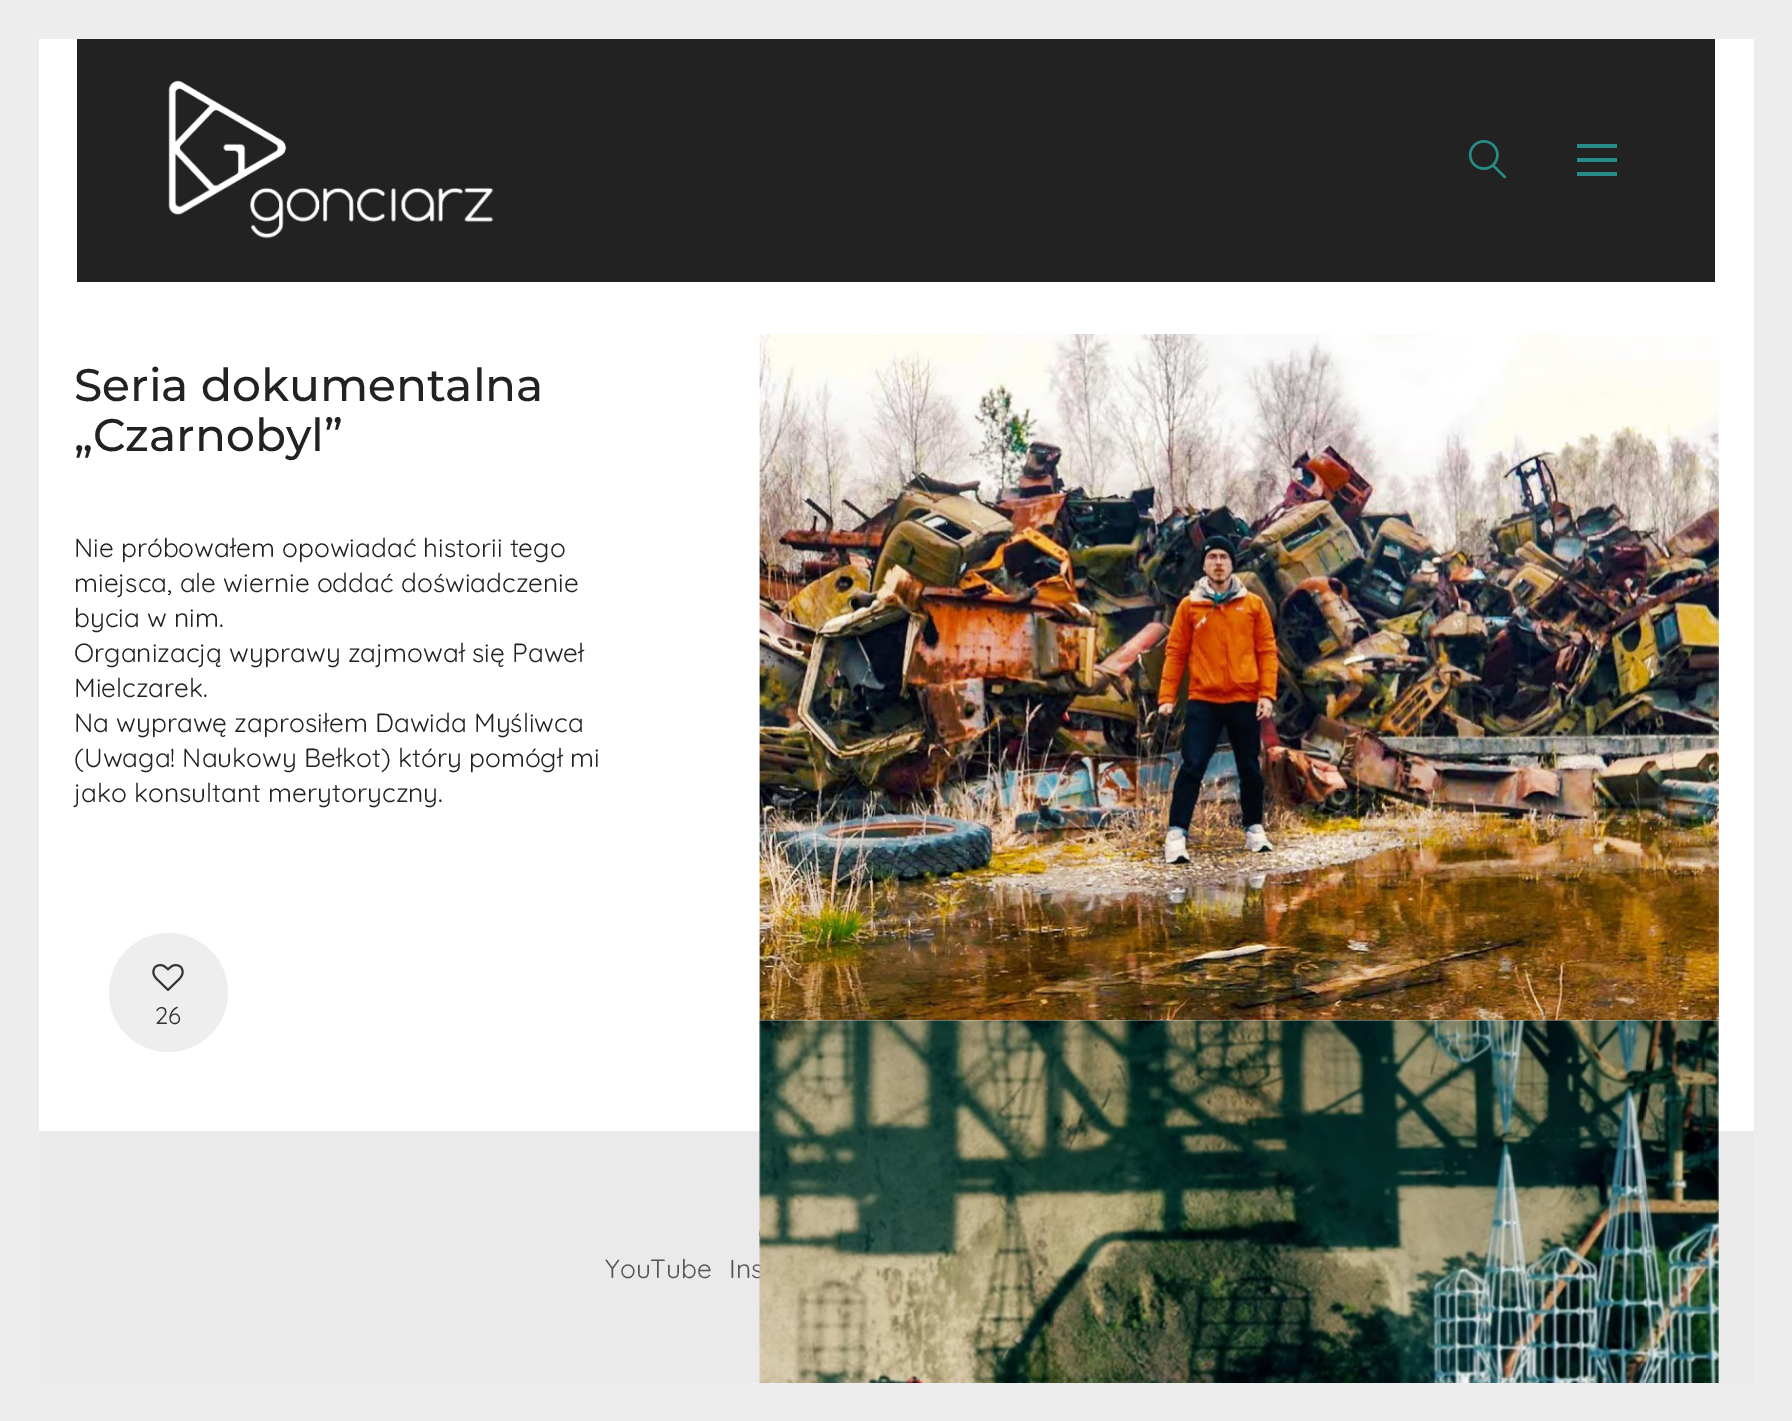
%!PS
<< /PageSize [1792 1421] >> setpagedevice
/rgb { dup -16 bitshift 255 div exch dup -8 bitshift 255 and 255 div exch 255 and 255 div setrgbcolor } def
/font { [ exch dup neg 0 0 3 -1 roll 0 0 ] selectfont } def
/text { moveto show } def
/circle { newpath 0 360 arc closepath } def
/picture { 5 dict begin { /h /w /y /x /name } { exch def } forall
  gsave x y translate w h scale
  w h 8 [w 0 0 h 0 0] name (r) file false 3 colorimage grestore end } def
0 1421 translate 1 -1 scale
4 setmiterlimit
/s1 { /Montserrat-Medium 45.5 font 16#222222 rgb } def
/s2 { /Quicksand-Light 26.25 font 16#222222 rgb } def
/s3 { /Quicksand-Light 24 font 16#333333 rgb } def
/s4 { /Quicksand-Light 26.25 font 16#555555 rgb } def
16#FFFFFF rgb
0 0 1792 1421 rectfill
16#EDEDED rgb
0 0 39 1421 rectfill
39 0 1715 39 rectfill
1754 0 38 1383 rectfill
39 1383 1753 38 rectfill
16#222222 rgb
77 39 1638 243 rectfill
(pic1.raw) 168 80 326 159 picture
(pic2.raw) 1468 140 39 39 picture
16#278B87 rgb
1577 158 40 4 rectfill
1577 144 40 4 rectfill
1577 172 40 4 rectfill
s1
(Seria dokumentalna) 74 401 text
(„Czarnobyl”) 74 451 text
s2
(Nie próbowałem opowiadać historii tego) 74 557 text
(miejsca, ale wiernie oddać doświadczenie) 74 592 text
(bycia w nim.) 74 627 text
(Organizacją wyprawy zajmował się Paweł) 74 662 text
(Mielczarek.) 74 697 text
(Na wyprawę zaprosiłem Dawida Myśliwca) 74 732 text
(\(Uwaga! Naukowy Bełkot\) który pomógł mi) 74 767 text
(jako konsultant merytoryczny.) 74 802 text
16#EEEEEE rgb
168.5 992.5 59.5 circle fill
(pic3.raw) 152 964 32 27 picture
s3
(26) 155 1024 text
(pic4.raw) 759 334 960 687 picture
16#EAEAEA rgb
39 1131 1715 252 rectfill
s4
(Ins) 729 1278 text
(pic5.raw) 759 1020 960 363 picture
(YouTube) 605 1278 text
showpage
